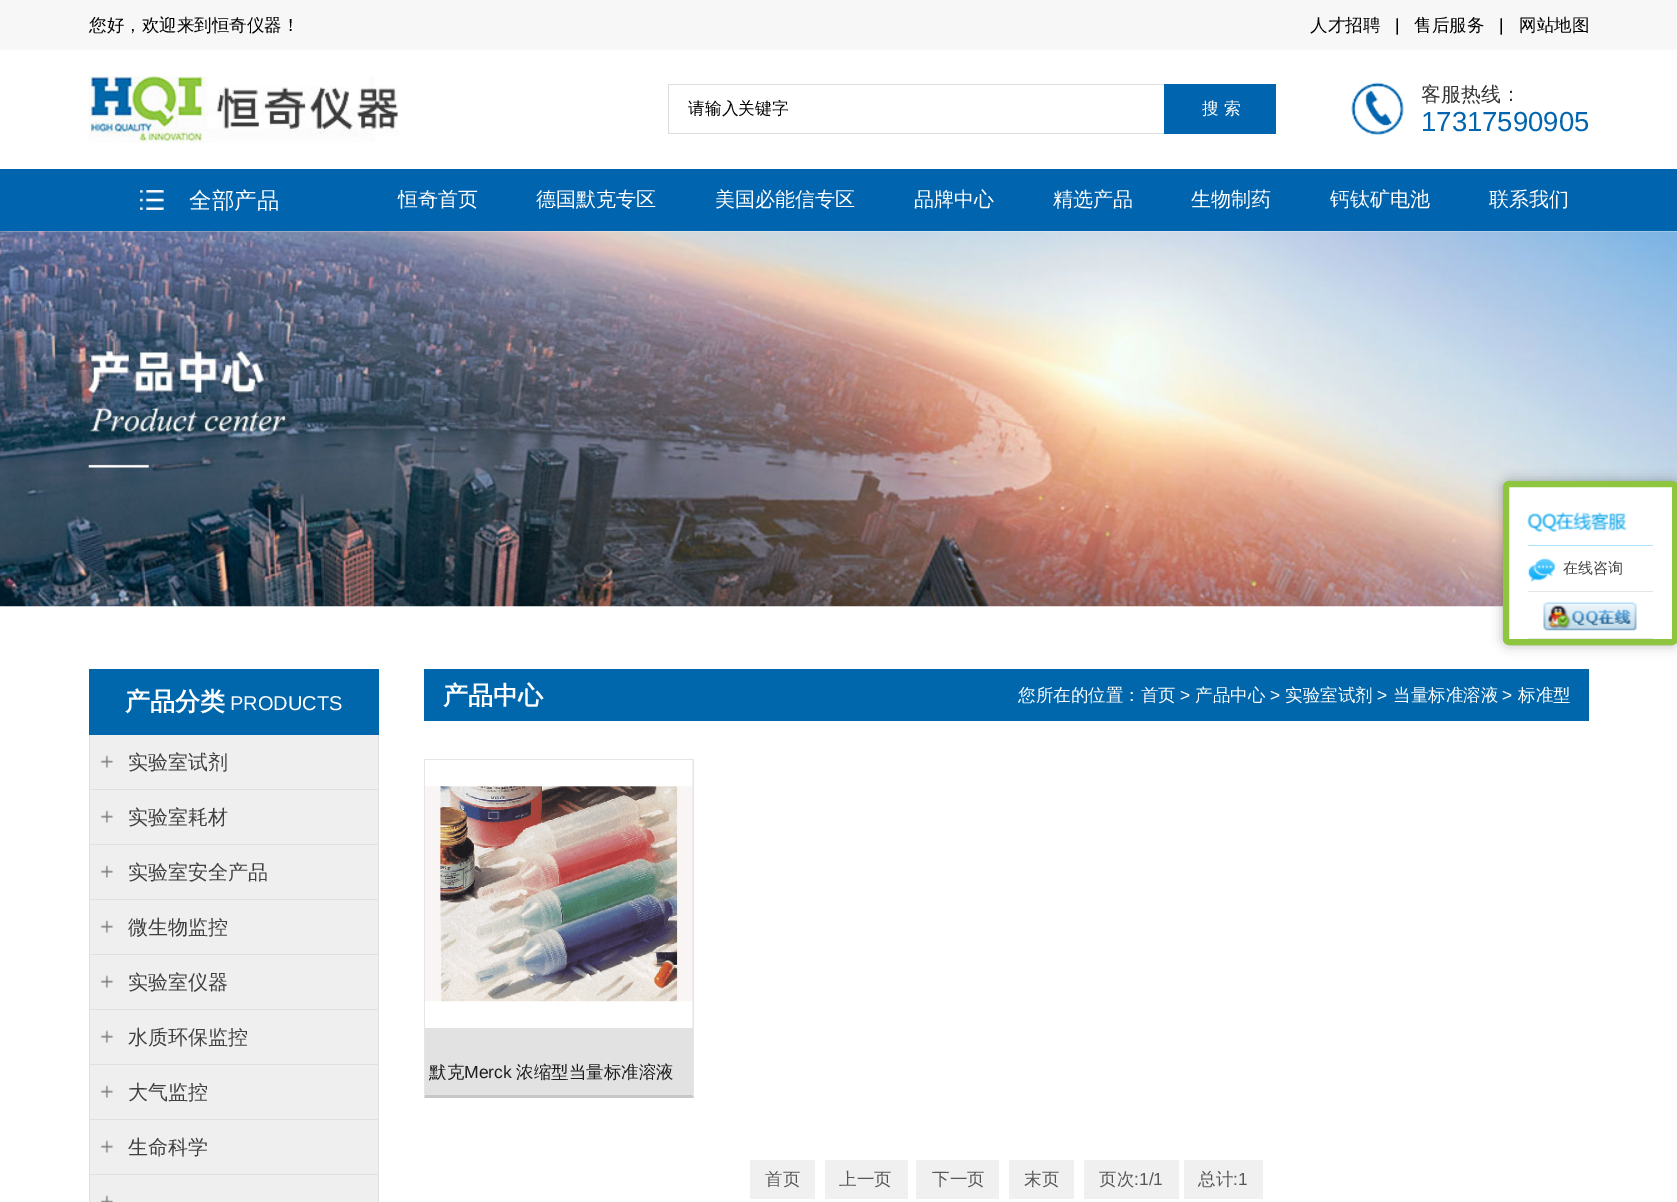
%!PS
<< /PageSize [1677 1202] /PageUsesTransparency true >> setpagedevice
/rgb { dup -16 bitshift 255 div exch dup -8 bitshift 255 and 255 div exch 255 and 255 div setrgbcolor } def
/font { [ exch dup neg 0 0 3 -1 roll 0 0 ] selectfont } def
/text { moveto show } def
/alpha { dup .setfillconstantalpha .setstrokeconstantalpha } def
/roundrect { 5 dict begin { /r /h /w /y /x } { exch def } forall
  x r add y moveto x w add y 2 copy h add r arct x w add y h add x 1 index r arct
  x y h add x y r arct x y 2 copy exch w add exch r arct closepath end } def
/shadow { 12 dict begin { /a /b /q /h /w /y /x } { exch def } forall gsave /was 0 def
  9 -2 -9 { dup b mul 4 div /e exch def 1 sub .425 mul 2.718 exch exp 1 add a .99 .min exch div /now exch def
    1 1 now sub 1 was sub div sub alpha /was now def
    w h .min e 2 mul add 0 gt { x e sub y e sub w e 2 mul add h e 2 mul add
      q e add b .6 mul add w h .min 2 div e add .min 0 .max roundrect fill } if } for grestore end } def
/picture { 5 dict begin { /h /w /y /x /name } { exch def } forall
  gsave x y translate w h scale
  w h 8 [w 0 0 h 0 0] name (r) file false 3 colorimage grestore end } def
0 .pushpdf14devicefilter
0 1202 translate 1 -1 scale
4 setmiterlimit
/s1 { /WenQuanYiZenHei-Medium 17.5 font 16#000000 rgb } def
/s2 { /LiberationSans-Regular 17.5 font 16#000000 rgb } def
/s3 { /WenQuanYiZenHei-Medium 16.75 font 16#000000 rgb } def
/s4 { /WenQuanYiZenHei-Medium 16.75 font 16#FFFFFF rgb } def
/s5 { /WenQuanYiZenHei-Medium 20 font 16#333333 rgb } def
/s6 { /LiberationSans-Regular 27.5 font 16#0064AE rgb } def
/s7 { /WenQuanYiZenHei-Medium 22.5 font 16#FFFFFF rgb } def
/s8 { /WenQuanYiZenHei-Medium 20 font 16#FFFFFF rgb } def
/s9 { /WenQuanYiZenHei-Medium 15 font 16#404040 rgb } def
/s10 { /WenQuanYiZenHei-Bold 25 font 16#FFFFFF rgb } def
/s11 { /LiberationSans-Regular 20 font 16#FFFFFF rgb } def
/s12 { /WenQuanYiZenHei-Medium 20 font 16#404040 rgb } def
/s13 { /WenQuanYiZenHei-Medium 17.5 font 16#FFFFFF rgb } def
/s14 { /LiberationSans-Regular 17.5 font 16#FFFFFF rgb } def
/s15 { /WenQuanYiZenHei-Medium 17.5 font 16#1C1C1C rgb } def
/s16 { /LiberationSans-Regular 17.5 font 16#1C1C1C rgb } def
/s17 { /WenQuanYiZenHei-Medium 17.5 font 16#575757 rgb } def
/s18 { /LiberationSans-Regular 17.5 font 16#575757 rgb } def
16#FFFFFF rgb
0 0 1677 1202 rectfill
16#F7F7F7 rgb
0 0 1677 50 rectfill
s1
(您好，欢迎来到恒奇仪器！) 89 31 text
(人才招聘) 1310 31 text
s2
(|) 1395 31 text
s1
(售后服务) 1414 31 text
s2
(|) 1499 31 text
s1
(网站地图) 1519 31 text
(pic1.raw) 88 76 311 67 picture
16#DDDDDD rgb
668 84 496 1 rectfill
668 133 496 1 rectfill
668 84 1 50 rectfill
s3
(请输入关键字) 688 114 text
16#0064AE rgb
1164 84 112 50 rectfill
s4
(搜 索) 1202 114 text
(pic2.raw) 1351 82 53 53 picture
s5
(客服热线：) 1421 101 text
s6
(17317590905) 1421 131 text
0 169 1677 62 rectfill
(pic3.raw) 140 190 24 20 picture
s7
(全部产品) 189 208 text
s8
(恒奇首页) 398 206 text
(德国默克专区) 536 206 text
(美国必能信专区) 715 206 text
(品牌中心) 914 206 text
(精选产品) 1053 206 text
(生物制药) 1191 206 text
(钙钛矿电池) 1330 206 text
(联系我们) 1489 206 text
(pic4.raw) 0 231 1677 376 picture
16#000000 rgb
1503 481 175 164 6 6 0.3 shadow
16#FFFFFF rgb
1506 484 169 158 3 roundrect gsave fill grestore
16#8EC63F rgb
6 setlinewidth
stroke
(pic5.raw) 1527 511 100 21 picture
16#ACE5F9 rgb
1528 545 125 1 rectfill
(pic6.raw) 1528 558 28 24 picture
16#E6E5E4 rgb
1528 591 125 1 rectfill
s9
(在线咨询) 1563 573 text
16#E6E5E4 rgb
1528 638 125 1 rectfill
(pic7.raw) 1543 601 94 30 picture
16#0167AC rgb
89 669 290 66 rectfill
s10
(产品分类) 125 710 text
s11
(PRODUCTS) 230 710 text
16#E0E0E0 rgb
378 735 1 467 rectfill
89 735 1 467 rectfill
16#EFEFEF rgb
90 735 288 54 rectfill
16#E0E0E0 rgb
90 789 288 1 rectfill
(pic8.raw) 100 755 14 13 picture
s12
(实验室试剂) 128 769 text
16#EFEFEF rgb
90 790 288 54 rectfill
16#E0E0E0 rgb
90 844 288 1 rectfill
(pic8.raw) 100 810 14 13 picture
s12
(实验室耗材) 128 824 text
16#EFEFEF rgb
90 845 288 54 rectfill
16#E0E0E0 rgb
90 899 288 1 rectfill
(pic8.raw) 100 865 14 13 picture
s12
(实验室安全产品) 128 879 text
16#EFEFEF rgb
90 900 288 54 rectfill
16#E0E0E0 rgb
90 954 288 1 rectfill
(pic8.raw) 100 920 14 13 picture
s12
(微生物监控) 128 934 text
16#EFEFEF rgb
90 955 288 54 rectfill
16#E0E0E0 rgb
90 1009 288 1 rectfill
(pic8.raw) 100 975 14 13 picture
s12
(实验室仪器) 128 989 text
16#EFEFEF rgb
90 1010 288 54 rectfill
16#E0E0E0 rgb
90 1064 288 1 rectfill
(pic8.raw) 100 1030 14 13 picture
s12
(水质环保监控) 128 1044 text
16#EFEFEF rgb
90 1065 288 54 rectfill
16#E0E0E0 rgb
90 1119 288 1 rectfill
(pic8.raw) 100 1085 14 13 picture
s12
(大气监控) 128 1099 text
16#EFEFEF rgb
90 1120 288 54 rectfill
16#E0E0E0 rgb
90 1174 288 1 rectfill
(pic8.raw) 100 1140 14 13 picture
s12
(生命科学) 128 1154 text
16#EFEFEF rgb
90 1175 288 27 rectfill
(pic9.raw) 100 1195 14 7 picture
16#0167AC rgb
424 669 1165 52 rectfill
s10
(产品中心) 443 704 text
s13
(您所在的位置：首页) 1018 701 text
s14
(>) 1180 701 text
s13
(产品中心) 1195 701 text
s14
(>) 1270 701 text
s13
(实验室试剂) 1285 701 text
s14
(>) 1377 701 text
s13
(当量标准溶液) 1393 701 text
s14
(>) 1502 701 text
s13
(标准型) 1518 701 text
16#E5E5E5 rgb
424 759 270 1 rectfill
694 759 moveto 694 1098 lineto 692 1095 lineto 692 760 lineto closepath fill
16#C7C7C7 rgb
694 1098 moveto 424 1098 lineto 425 1095 lineto 692 1095 lineto closepath fill
16#E5E5E5 rgb
424 1098 moveto 424 759 lineto 425 760 lineto 425 1095 lineto closepath fill
(pic10.raw) 425 760 268 268 picture
16#E2E2E2 rgb
425 1028 268 67 rectfill
s15
(默克) 429 1078 text
s16
(Merck) 464 1078 text
s15
(浓缩型当量标准溶液) 516 1078 text
16#F0F0F0 rgb
750 1160 65 39 rectfill
s17
(首页) 765 1185 text
16#F0F0F0 rgb
825 1160 83 39 rectfill
s17
(上一页) 839 1185 text
16#F0F0F0 rgb
916 1160 83 39 rectfill
s17
(下一页) 932 1185 text
16#F0F0F0 rgb
1009 1160 65 39 rectfill
s17
(末页) 1024 1185 text
16#F0F0F0 rgb
1084 1160 95 39 rectfill
s17
(页次) 1099 1185 text
s18
(:1/1) 1134 1185 text
16#F0F0F0 rgb
1184 1160 79 39 rectfill
s17
(总计) 1198 1185 text
s18
(:1) 1233 1185 text
.poppdf14devicefilter showpage
